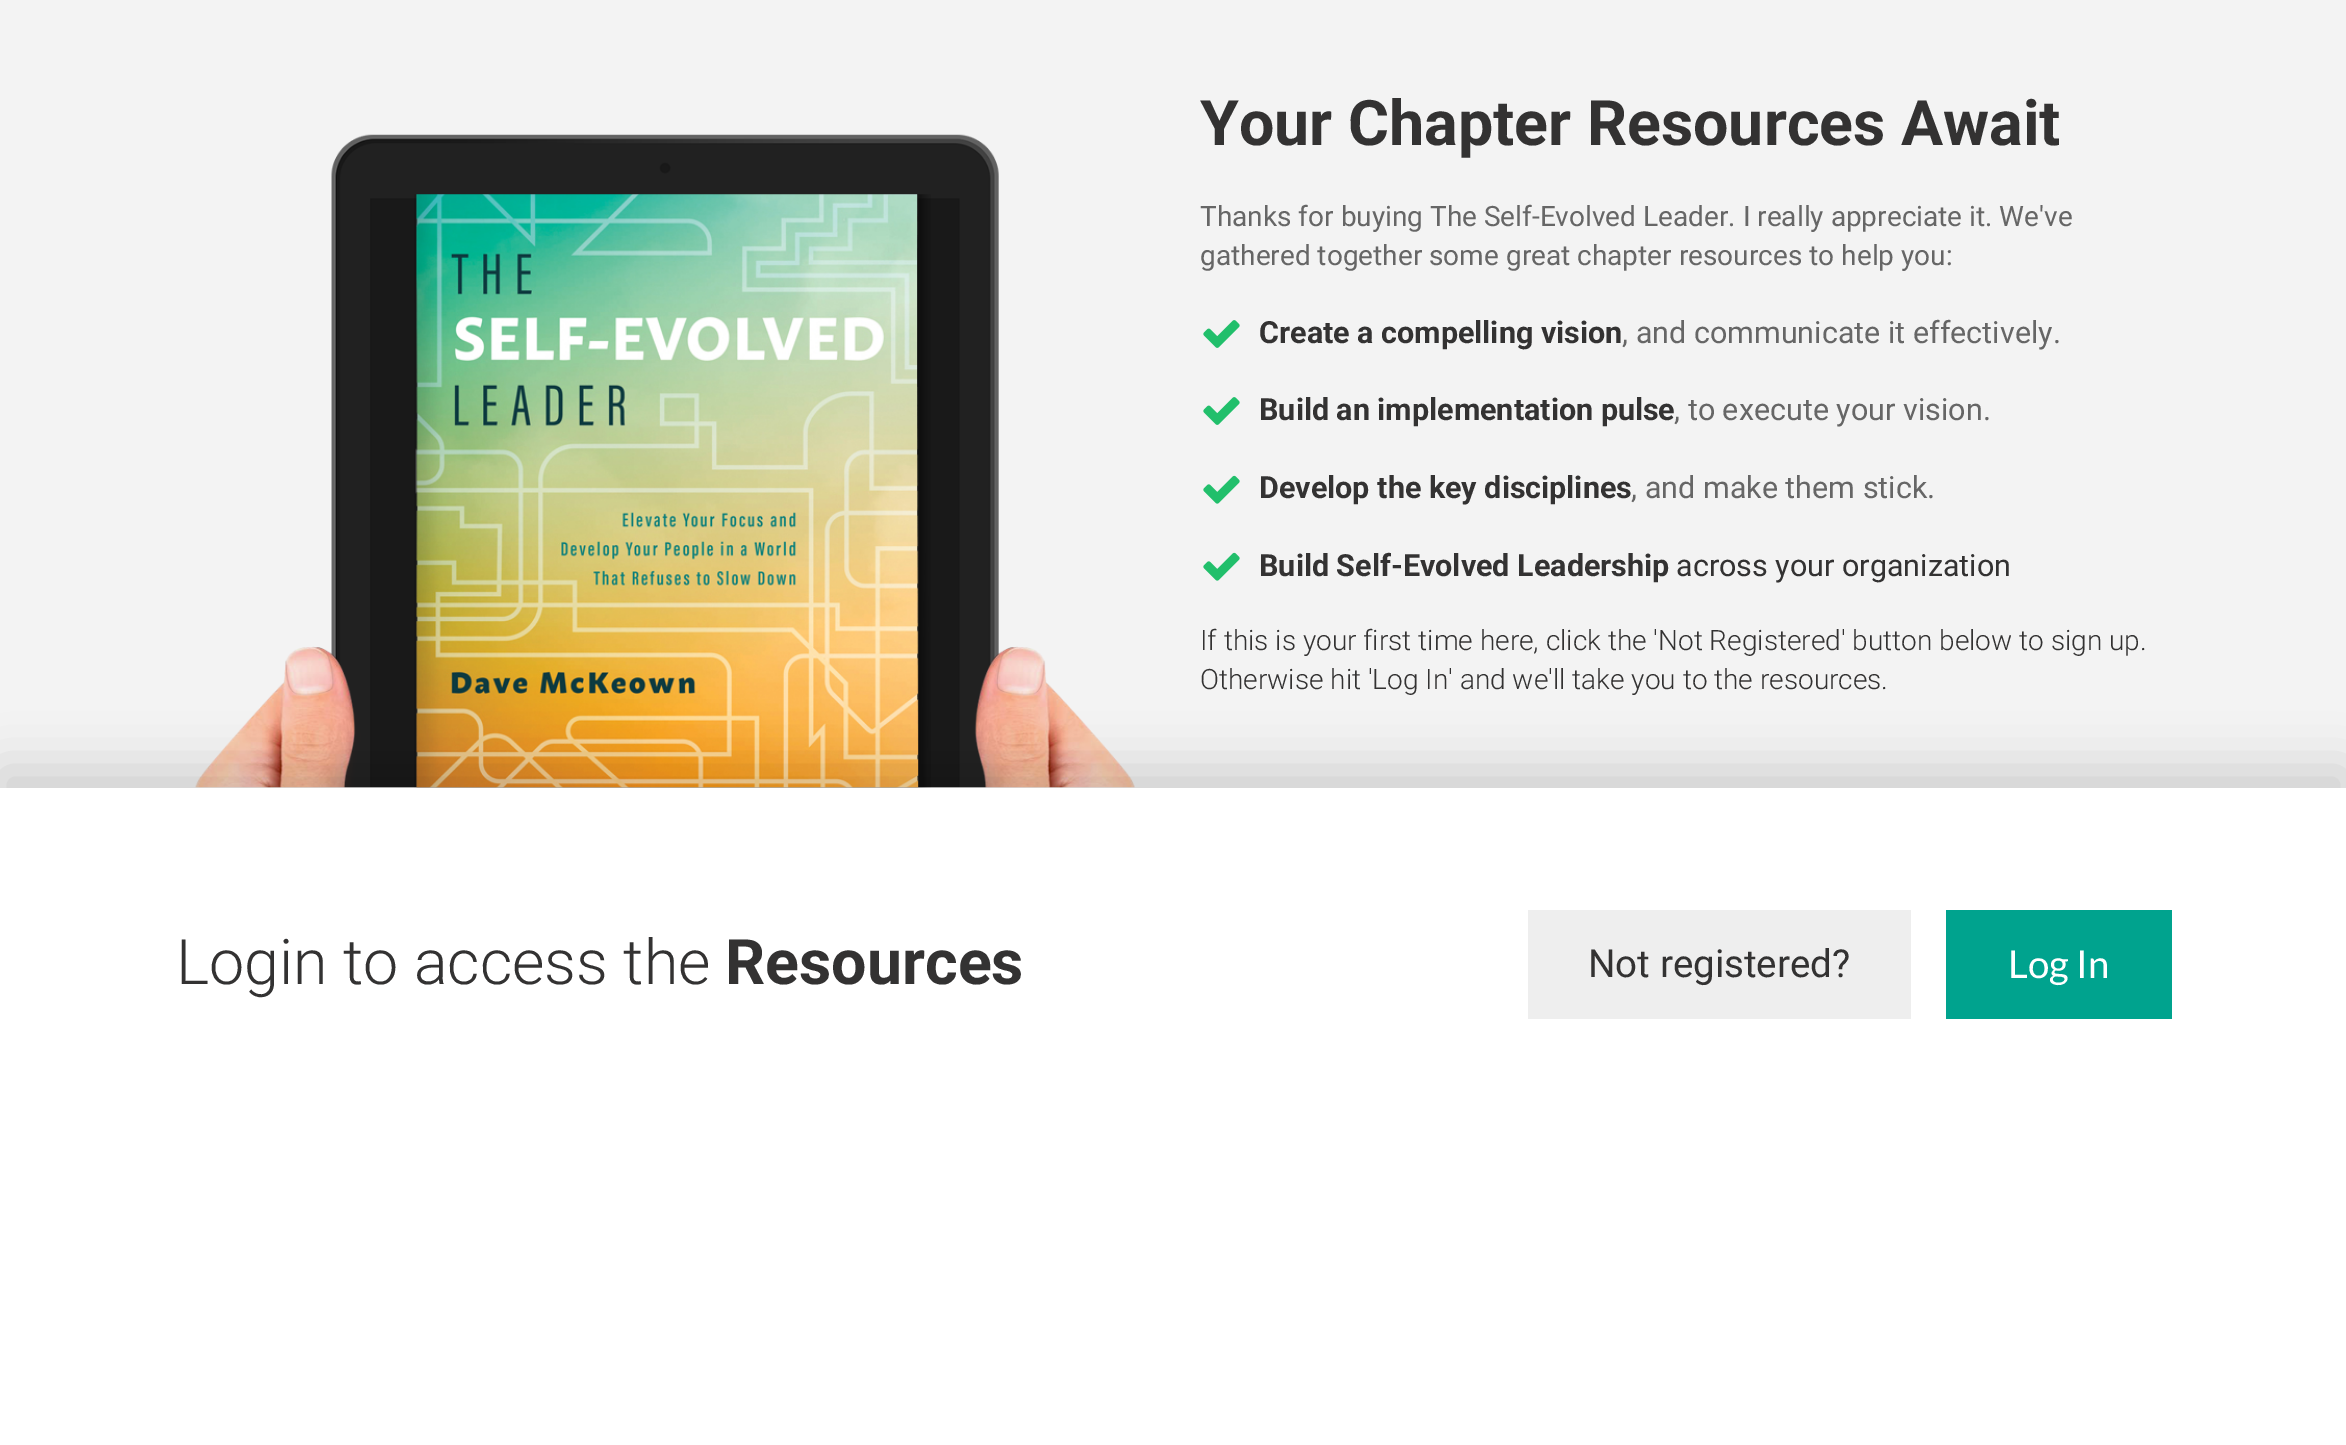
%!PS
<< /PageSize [2346 1445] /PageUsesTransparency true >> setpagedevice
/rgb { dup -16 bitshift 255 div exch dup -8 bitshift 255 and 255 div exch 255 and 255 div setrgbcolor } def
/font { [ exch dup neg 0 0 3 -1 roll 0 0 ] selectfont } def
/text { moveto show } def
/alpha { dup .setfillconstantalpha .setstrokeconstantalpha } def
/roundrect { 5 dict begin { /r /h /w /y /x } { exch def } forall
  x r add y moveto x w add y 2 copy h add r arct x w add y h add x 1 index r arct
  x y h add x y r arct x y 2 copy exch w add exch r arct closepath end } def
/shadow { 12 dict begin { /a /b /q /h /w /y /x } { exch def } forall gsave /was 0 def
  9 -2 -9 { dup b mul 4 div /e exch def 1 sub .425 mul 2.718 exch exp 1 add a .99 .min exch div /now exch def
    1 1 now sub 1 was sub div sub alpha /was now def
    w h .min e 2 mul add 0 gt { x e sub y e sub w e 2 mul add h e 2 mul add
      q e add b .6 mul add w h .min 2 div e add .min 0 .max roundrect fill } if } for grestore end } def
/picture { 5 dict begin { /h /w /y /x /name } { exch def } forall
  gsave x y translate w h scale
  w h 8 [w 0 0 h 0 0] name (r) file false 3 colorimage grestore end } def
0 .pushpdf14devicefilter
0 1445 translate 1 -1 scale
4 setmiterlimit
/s1 { /Roboto-Bold 62.75 font 16#333232 rgb } def
/s2 { /Roboto-Regular 28 font 16#666666 rgb } def
/s3 { /Roboto-Bold 30.5 font 16#333232 rgb } def
/s4 { /Roboto-Regular 30.5 font 16#666666 rgb } def
/s5 { /Roboto-Regular 30.5 font 16#333232 rgb } def
/s6 { /Roboto-Light 28 font 16#333232 rgb } def
/s7 { /Roboto-Light 62.75 font 16#333232 rgb } def
/s8 { /Roboto-Regular 38.5 font 16#333232 rgb } def
/s9 { /Lato-Regular 38.5 font 16#FFFFFF rgb } def
16#FFFFFF rgb
0 0 2346 1445 rectfill
16#F3F3F3 rgb
0 0 2346 788 rectfill
(pic1.raw) 195 134 940 654 picture
(pic2.raw) 414 194 517 594 picture
s1
(Your Chapter Resources Await) 1200 145 text
s2
(Thanks for buying The Self-Evolved Leader. I really appreciate it. We've) 1200 226 text
(gathered together some great chapter resources to help you:) 1200 265 text
(pic3.raw) 1203 320 37 28 picture
s3
(Create a compelling vision) 1259 343 text
s4
(, and communicate it effectively.) 1622 343 text
(pic3.raw) 1203 397 37 28 picture
s3
(Build an implementation pulse) 1259 420 text
s4
(, to execute your vision.) 1674 420 text
(pic4.raw) 1203 475 37 29 picture
s3
(Develop the key disciplines) 1259 498 text
s4
(, and make them stick.) 1631 498 text
(pic4.raw) 1203 552 37 29 picture
s3
(Build Self-Evolved Leadership) 1259 576 text
s5
(across your organization) 1676 576 text
s6
(If this is your first time here, click the 'Not Registered' button below to sign up.) 1200 650 text
(Otherwise hit 'Log In' and we'll take you to the resources.) 1200 689 text
gsave
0 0 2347 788 rectclip
16#000000 rgb
0 770 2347 35 0 26 0.15 shadow
grestore
s7
(Login to access the) 176 984 text
s1
(Resources) 725 984 text
16#EEEEEE rgb
1528 910 383 109 rectfill
s8
(Not registered?) 1588 977 text
16#00A38E rgb
1946 910 226 109 rectfill
s9
(Log In) 2008 978 text
.poppdf14devicefilter showpage
